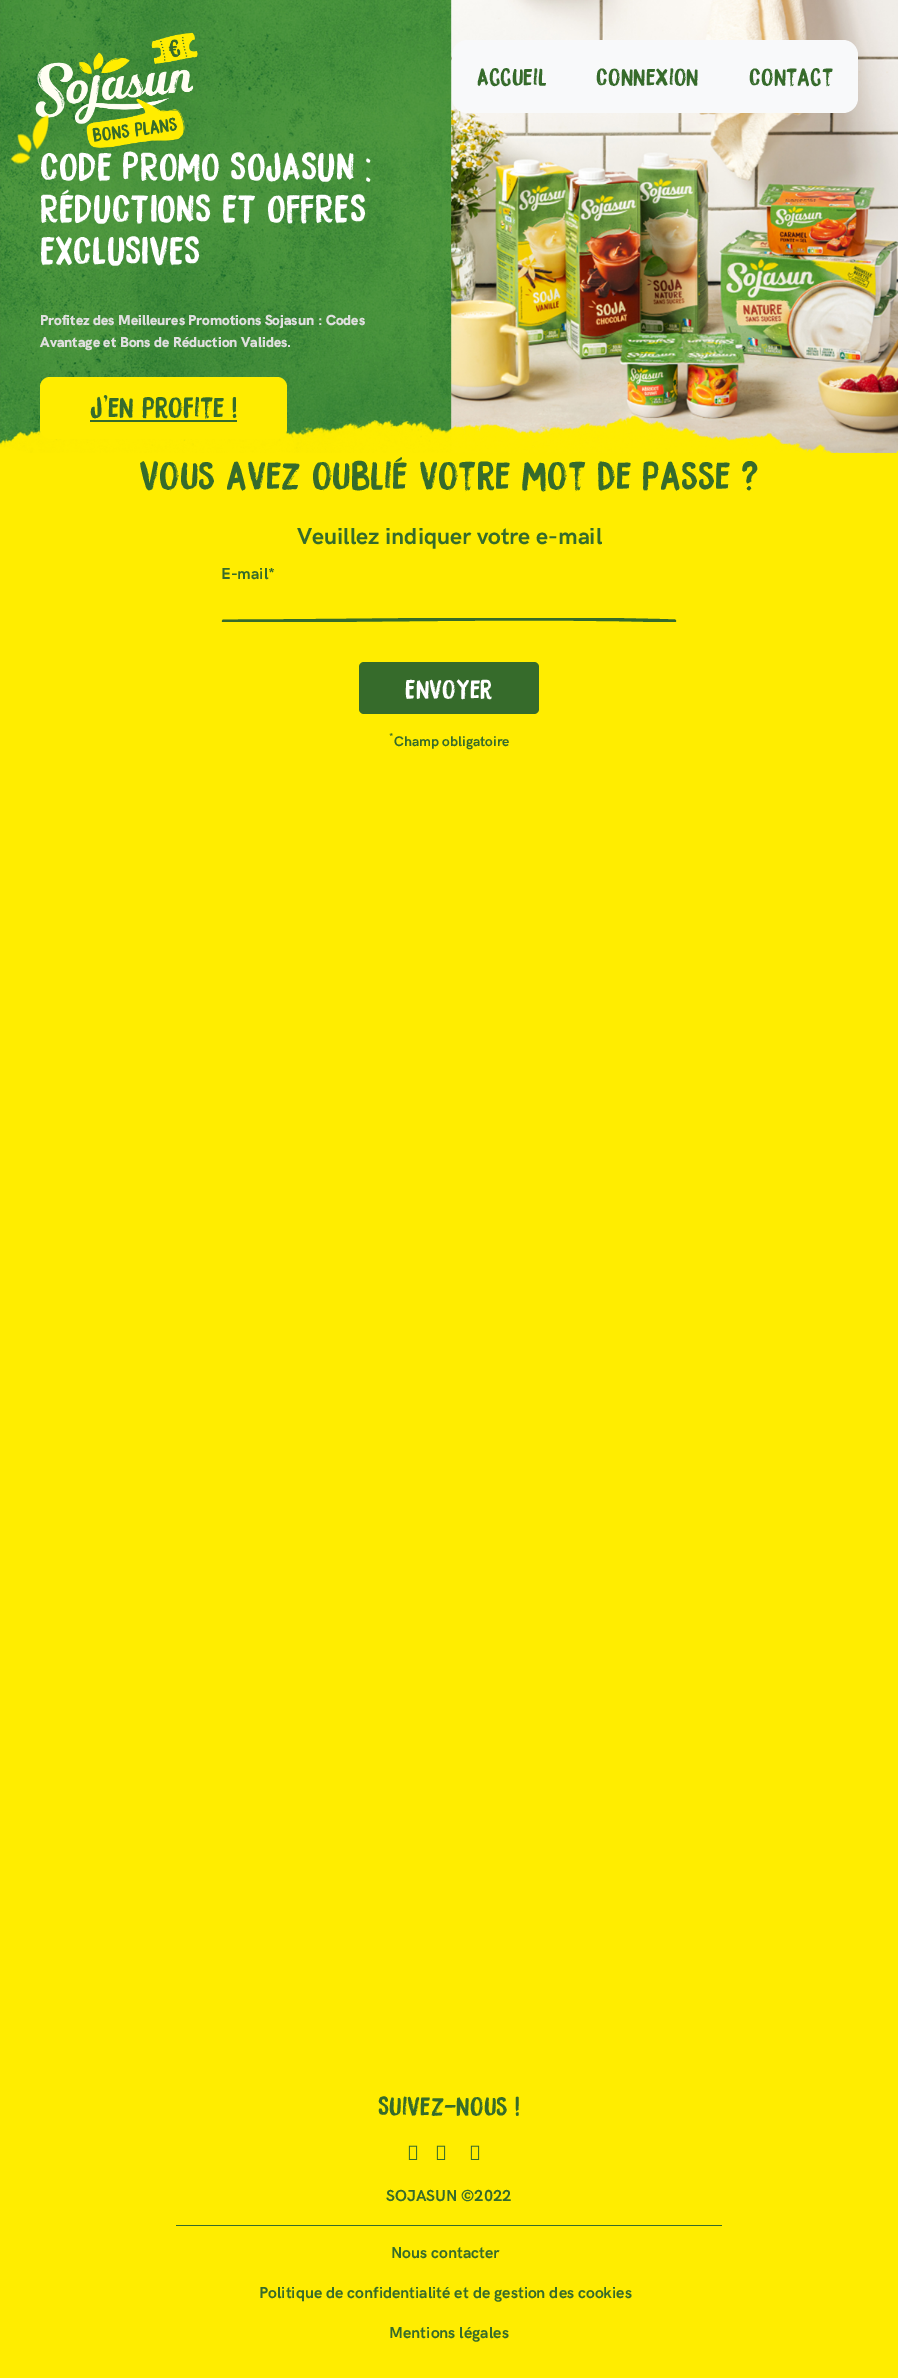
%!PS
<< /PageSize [898 2378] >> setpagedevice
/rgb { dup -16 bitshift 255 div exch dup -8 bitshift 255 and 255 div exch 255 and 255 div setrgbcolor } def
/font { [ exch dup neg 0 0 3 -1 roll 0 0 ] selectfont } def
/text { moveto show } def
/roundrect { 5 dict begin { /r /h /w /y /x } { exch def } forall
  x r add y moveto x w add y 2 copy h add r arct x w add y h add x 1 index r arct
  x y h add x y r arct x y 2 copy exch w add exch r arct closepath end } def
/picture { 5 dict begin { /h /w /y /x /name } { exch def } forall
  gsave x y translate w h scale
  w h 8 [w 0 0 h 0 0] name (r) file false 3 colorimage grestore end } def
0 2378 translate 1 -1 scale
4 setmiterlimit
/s1 { /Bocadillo-Regular 22 font 16#366B2B rgb } def
/s2 { /Bocadillo-Regular 35 font 16#FFFFFF rgb } def
/s3 { /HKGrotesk-Black 14.4 font 16#E0DFDF rgb } def
/s4 { /Bocadillo-Regular 26 font 16#366B2B rgb } def
/s5 { /Bocadillo-Regular 35.5 font 16#366B2B rgb } def
/s6 { /HKGrotesk-Bold 23.1 font 16#366B2B rgb } def
/s7 { /HKGrotesk-Bold 16 font 16#366B2B rgb } def
/s8 { /Bocadillo-Regular 24 font 16#FFFFFF rgb } def
/s9 { /HKGrotesk-Bold 10 font 16#366B2B rgb } def
/s10 { /HKGrotesk-Bold 14 font 16#366B2B rgb } def
/s11 { /Bocadillo-Regular 24 font 16#366B2B rgb } def
16#FFED00 rgb
0 0 898 2378 rectfill
(pic1.raw) 0 0 898 453 picture
(pic2.raw) 35 32 163 116 picture
16#F8F9FA rgb
452 40 406 73 15 roundrect fill
s1
(Accueil) 477 86 text
(Connexion) 596 86 text
(Contact) 749 86 text
(pic3.raw) 10 114 39 51 picture
s2
(CODE PROMO SOJASUN :) 40 181 text
(RÉDUCTIONS ET OFFRES) 40 223 text
(EXCLUSIVES) 40 265 text
s3
(Profitez des Meilleures Promotions Sojasun : Codes) 40 325 text
(Avantage et Bons de Réduction Valides.) 40 347 text
16#FFED00 rgb
40 377 247 62 10 roundrect fill
s4
(J'en profite !) 90 418 text
90 420 147 2 rectfill
s5
(Vous avez oublié votre mot de passe ?) 139 490 text
s6
(Veuillez indiquer votre e-mail) 297 544 text
s7
(E-mail*) 221 579 text
gsave
221 618 456 4 rectclip
3.1 setlinewidth
1 setlinecap
1 setlinejoin
223.5 621 moveto 379.5 621 529.5 616.5 674.5 621 curveto stroke
grestore
359 662 180 52 5 roundrect fill
s8
(Envoyer) 405 699 text
s9
(*) 389 740 text
s10
(Champ obligatoire) 394 746 text
176 2225 546 1 rectfill
s11
(Suivez-nous !) 378 2116 text
(pic4.raw) 408 2145 10 15 picture
(pic4.raw) 436 2145 10 15 picture
(pic4.raw) 470 2145 10 15 picture
s7
(SOJASUN ©2022) 386 2201 text
(Nous contacter) 391 2258 text
(Politique de confidentialité et de gestion des cookies) 259 2298 text
(Mentions légales) 389 2338 text
showpage
